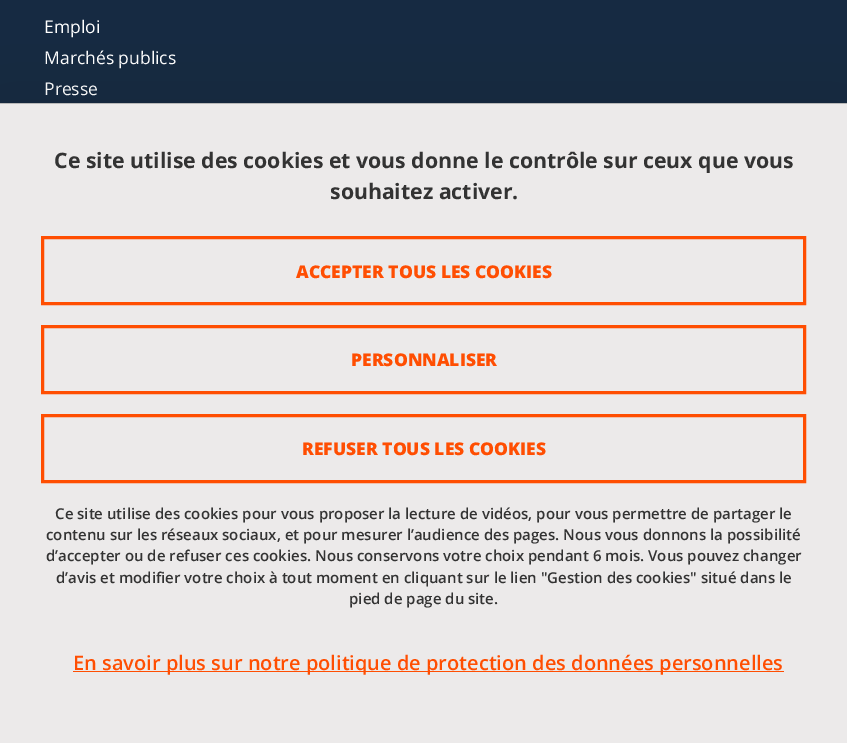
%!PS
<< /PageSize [847 743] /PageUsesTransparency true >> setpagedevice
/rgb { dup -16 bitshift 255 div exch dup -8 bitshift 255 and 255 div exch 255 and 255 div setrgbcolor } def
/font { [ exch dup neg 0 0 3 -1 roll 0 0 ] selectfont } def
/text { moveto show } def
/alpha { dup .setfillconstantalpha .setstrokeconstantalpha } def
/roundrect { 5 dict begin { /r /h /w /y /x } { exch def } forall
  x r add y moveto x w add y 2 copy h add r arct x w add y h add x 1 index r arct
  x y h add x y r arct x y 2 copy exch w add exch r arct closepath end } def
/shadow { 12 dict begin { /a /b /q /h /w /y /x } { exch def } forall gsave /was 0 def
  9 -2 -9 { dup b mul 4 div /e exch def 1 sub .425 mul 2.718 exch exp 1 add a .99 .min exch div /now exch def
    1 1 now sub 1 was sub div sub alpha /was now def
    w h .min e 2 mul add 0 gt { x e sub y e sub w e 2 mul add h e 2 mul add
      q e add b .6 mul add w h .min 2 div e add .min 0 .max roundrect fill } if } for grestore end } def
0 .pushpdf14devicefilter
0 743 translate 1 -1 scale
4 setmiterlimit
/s1 { /OpenSans-Regular 17.5 font 16#FFFFFF rgb } def
/s2 { /OpenSans-Bold 21.25 font 16#333333 rgb } def
/s3 { /OpenSans-ExtraBold 17.5 font 16#FF4E02 rgb } def
/s4 { /OpenSans-SemiBold 15 font 16#333333 rgb } def
/s5 { /OpenSans-SemiBold 20 font 16#FF4E02 rgb } def
16#162A42 rgb
0 0 847 743 rectfill
s1
(Emploi) 44 33 text
(Marchés publics) 44 64 text
(Presse) 44 95 text
16#000000 rgb
0 128 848 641 0 37.5 0.25 shadow
16#ECEAEA rgb
0 104 847 639 rectfill
16#B8B8B8 rgb
0 103 847 1 rectfill
s2
(Ce site utilise des cookies et vous donne le contrôle sur ceux que vous) 54 168 text
(souhaitez activer.) 330 199 text
16#FF4E02 rgb
3 setlinewidth
42.5 237.5 762 66 rectstroke
s3
(ACCEPTER TOUS LES COOKIES) 296 278 text
42.5 326.5 762 66 rectstroke
(PERSONNALISER) 351 366 text
42.5 415.5 762 66 rectstroke
(REFUSER TOUS LES COOKIES) 302 455 text
s4
(Ce site utilise des cookies pour vous proposer la lecture de vidéos, pour vous permettre de partager le) 55 519 text
(contenu sur les réseaux sociaux, et pour mesurer l’audience des pages. Nous vous donnons la possibilité) 46 540 text
(d’accepter ou de refuser ces cookies. Nous conservons votre choix pendant 6 mois. Vous pouvez changer) 46 561 text
(d’avis et modifier votre choix à tout moment en cliquant sur le lien "Gestion des cookies" situé dans le) 56 583 text
(pied de page du site.) 349 604 text
16#FF4E02 rgb
73 671 711 1 rectfill
s5
(En savoir plus sur notre politique de protection des données personnelles) 73 670 text
.poppdf14devicefilter showpage
